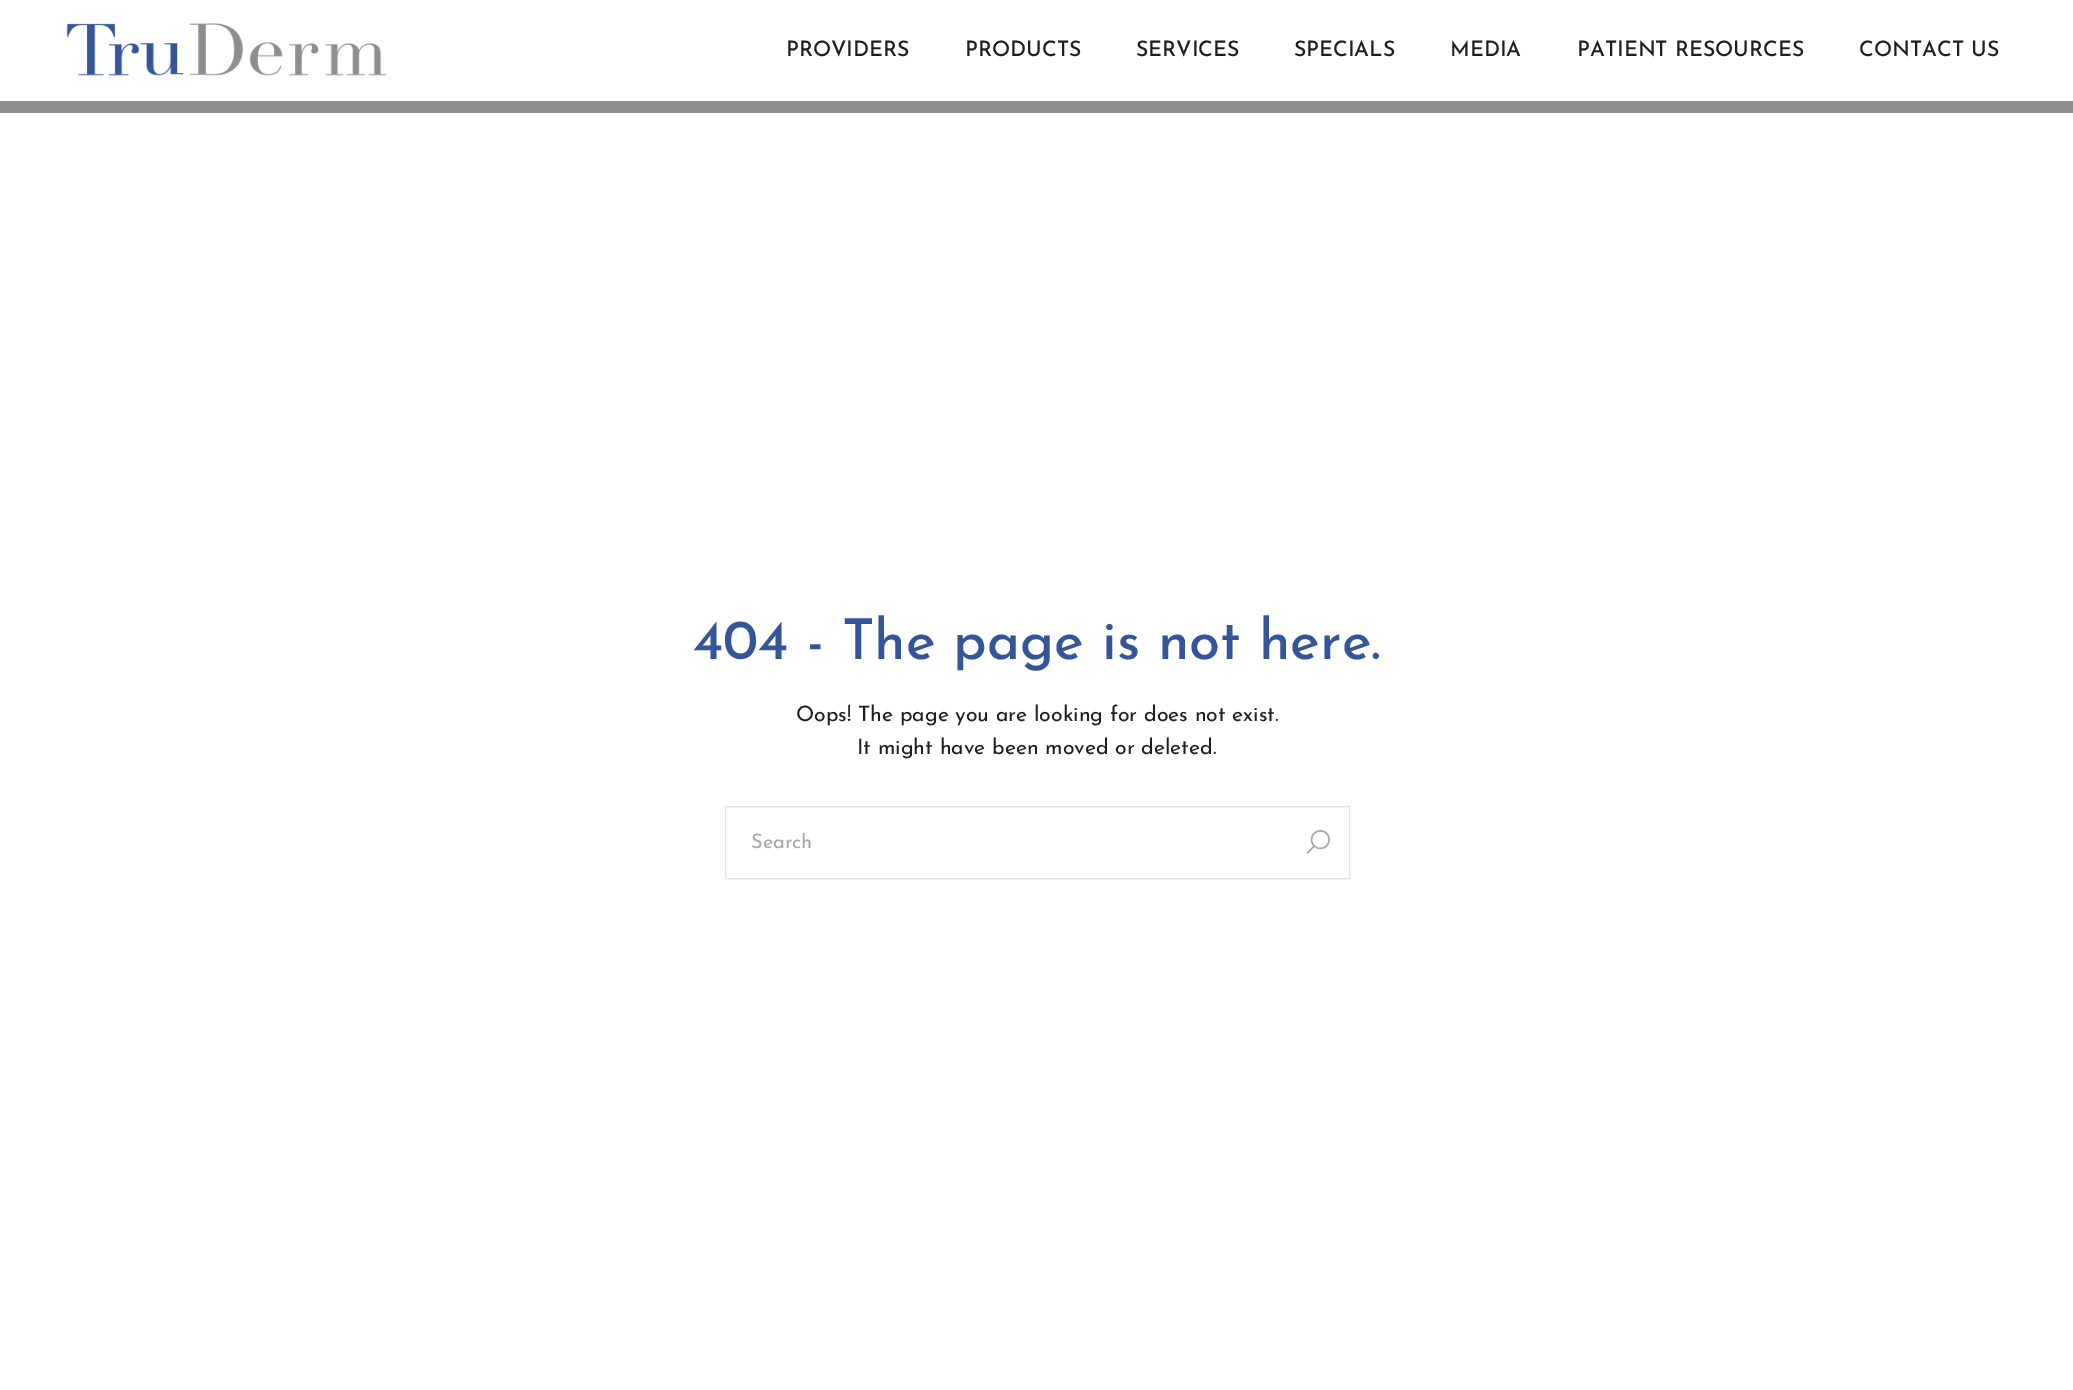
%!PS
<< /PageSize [2073 1390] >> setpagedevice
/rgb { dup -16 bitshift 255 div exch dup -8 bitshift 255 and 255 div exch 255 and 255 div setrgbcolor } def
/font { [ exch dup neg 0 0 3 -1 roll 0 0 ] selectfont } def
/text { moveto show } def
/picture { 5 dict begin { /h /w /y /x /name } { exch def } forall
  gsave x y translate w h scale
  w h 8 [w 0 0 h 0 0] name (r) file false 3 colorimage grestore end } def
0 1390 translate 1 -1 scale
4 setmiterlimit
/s1 { /JosefinSans-Medium 21.25 font 16#1E1E1E rgb } def
/s2 { /JosefinSans-Medium 56.25 font 16#345699 rgb } def
/s3 { /JosefinSans-Regular 21.25 font 16#1E1E1E rgb } def
/s4 { /JosefinSans-Regular 20 font 16#A8A7A7 rgb } def
16#FFFFFF rgb
0 0 2073 1390 rectfill
16#8D8E90 rgb
0 101 2073 12 rectfill
(pic1.raw) 66 23 321 53 picture
s1
(PROVIDERS) 786 56 text
(PRODUCTS) 965 56 text
(SERVICES) 1136 56 text
(SPECIALS) 1294 56 text
(MEDIA) 1450 56 text
(PATIENT RESOURCES) 1577 56 text
(CONTACT US) 1859 56 text
s2
(404 - The page is not here.) 693 659 text
s3
(Oops! The page you are looking for does not exist.) 796 721 text
(It might have been moved or deleted.) 857 754 text
16#E1E1E1 rgb
725.5 806.5 624 72 rectstroke
gsave
751 833 535 20 rectclip
s4
(Search) 751 848 text
grestore
(pic2.raw) 1306 830 24 24 picture
showpage
